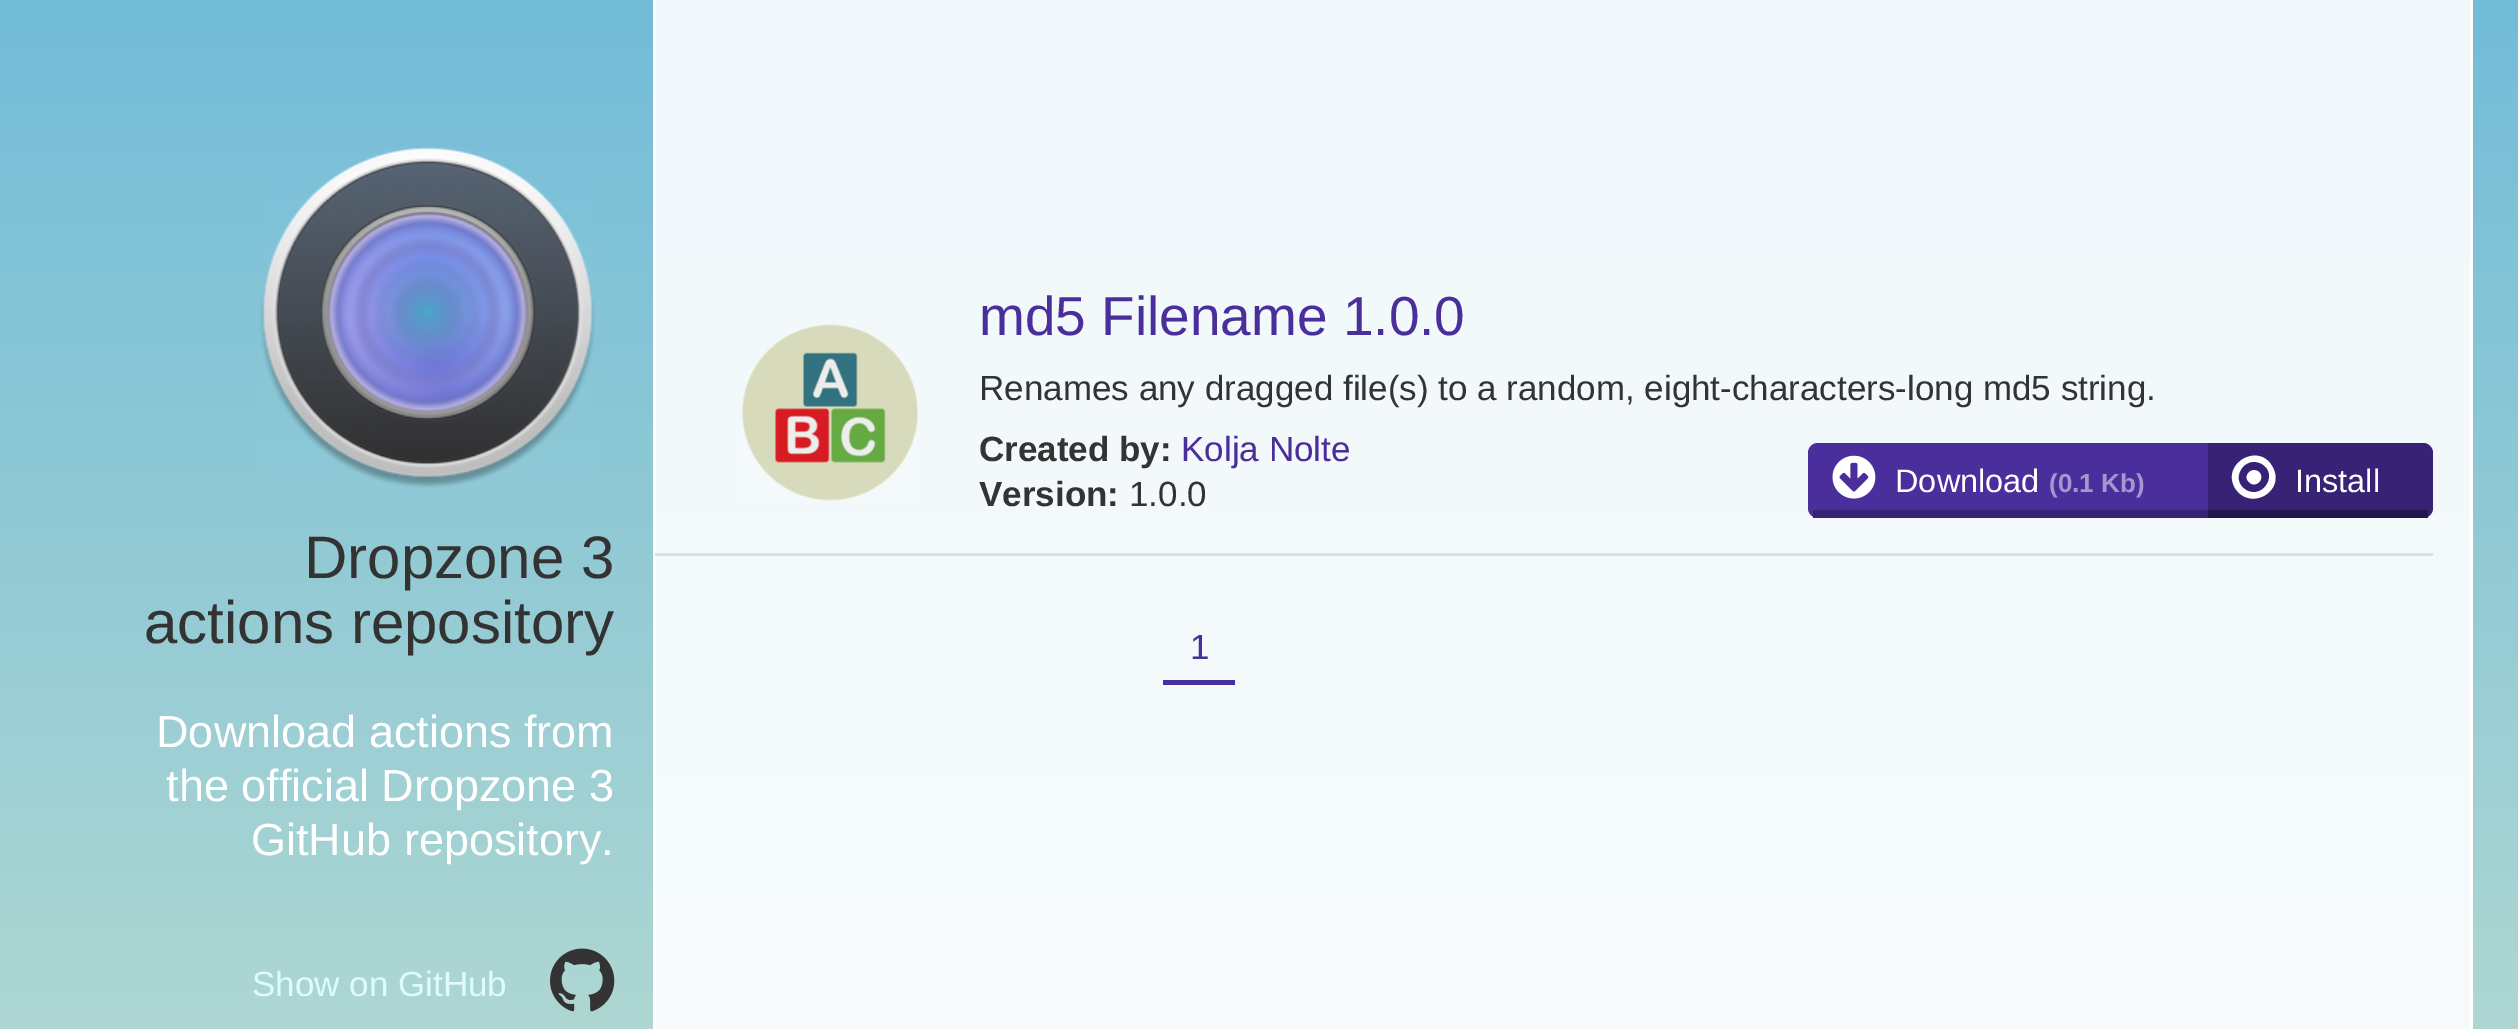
%!PS
<< /PageSize [2518 1029] >> setpagedevice
/rgb { dup -16 bitshift 255 div exch dup -8 bitshift 255 and 255 div exch 255 and 255 div setrgbcolor } def
/font { [ exch dup neg 0 0 3 -1 roll 0 0 ] selectfont } def
/text { moveto show } def
/picture { 5 dict begin { /h /w /y /x /name } { exch def } forall
  gsave x y translate w h scale
  w h 8 [w 0 0 h 0 0] name (r) file false 3 colorimage grestore end } def
0 1029 translate 1 -1 scale
4 setmiterlimit
/s1 { /LiberationSans-Regular 55 font 16#492E9C rgb } def
/s2 { /LiberationSans-Regular 35 font 16#333333 rgb } def
/s3 { /LiberationSans-Bold 35 font 16#333333 rgb } def
/s4 { /LiberationSans-Regular 35 font 16#492E9C rgb } def
/s5 { /LiberationSans-Regular 32.5 font 16#FFFFFF rgb } def
/s6 { /LiberationSans-Bold 26 font 16#A497CE rgb } def
/s7 { /LiberationSans-Regular 60 font 16#333333 rgb } def
/s8 { /LiberationSans-Regular 45 font 16#FFFFFF rgb } def
/s9 { /LiberationSans-Regular 35 font 16#DEFBFF rgb } def
16#FFFFFF rgb
0 0 2518 1029 rectfill
gsave 0 0 moveto 2518 0 lineto 2518 1029 lineto 0 1029 lineto closepath clip newpath
<< /ShadingType 2 /ColorSpace /DeviceRGB /Coords [1260 0 1260 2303] /Extend [true true] /Function << /FunctionType 2 /Domain [0 1] /C0 [0.447 0.737 0.851] /C1 [0.976 0.973 0.788] /N 1 >> >> shfill grestore
gsave 656 0 moveto 2470 0 lineto 2470 1029 lineto 656 1029 lineto closepath clip newpath
<< /ShadingType 2 /ColorSpace /DeviceRGB /Coords [1260 0 1260 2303] /Extend [true true] /Function << /FunctionType 2 /Domain [0 1] /C0 [0.945 0.973 0.984] /C1 [0.996 0.996 0.98] /N 1 >> >> shfill grestore
2470 0 3 1029 rectfill
653 0 3 1029 rectfill
16#D5E3E8 rgb
655 553 1778 3 rectfill
s1
(md5 Filename 1.0.0) 979 335 text
(pic1.raw) 742 324 176 177 picture
s2
(Renames any dragged file\(s\) to a random, eight-characters-long md5 string.) 979 400 text
s3
(Created by:) 979 461 text
s4
(Kolja Nolte) 1181 461 text
s3
(Version:) 979 506 text
s2
(1.0.0) 1129 506 text
16#492E9C rgb
1818 443 moveto 2208 443 lineto 2208 518 lineto 1818 518 lineto 1812.5 518 1808 513.5 1808 508 curveto 1808 453 lineto 1808 447.5 1812.5 443 1818 443 curveto closepath fill
16#372275 rgb
1813 510 395 8 rectfill
(pic2.raw) 1832 455 44 44 picture
s5
(Download) 1895 492 text
s6
(\(0.1 Kb\)) 2049 492 text
16#372275 rgb
2208 443 moveto 2423 443 lineto 2428.5 443 2433 447.5 2433 453 curveto 2433 508 lineto 2433 513.5 2428.5 518 2423 518 curveto 2208 518 lineto closepath fill
16#24174D rgb
2208 510 220 8 rectfill
16#FFFFFF rgb
2259 472 moveto 2266 479 2255 489 2249 482 curveto 2242 476 2252 466 2259 472 curveto closepath 2262 464 moveto 2244 454 2229 480 2246 490 curveto 2263 500 2279 474 2262 464 curveto closepath 2272 466 moveto 2287 491 2250 512 2235 488 curveto 2221 464 2258 442 2272 466 curveto closepath fill
s5
(Install) 2295 492 text
16#492E9C rgb
1163 680 72 5 rectfill
s4
(1) 1190 659 text
(pic3.raw) 260 147 335 341 picture
s7
(Dropzone 3) 304 578 text
(actions repository) 144 643 text
s8
(Download actions from) 156 747 text
(the official Dropzone 3) 166 801 text
(GitHub repository.) 251 855 text
s9
(Show on GitHub) 252 996 text
(pic4.raw) 550 948 65 64 picture
showpage
